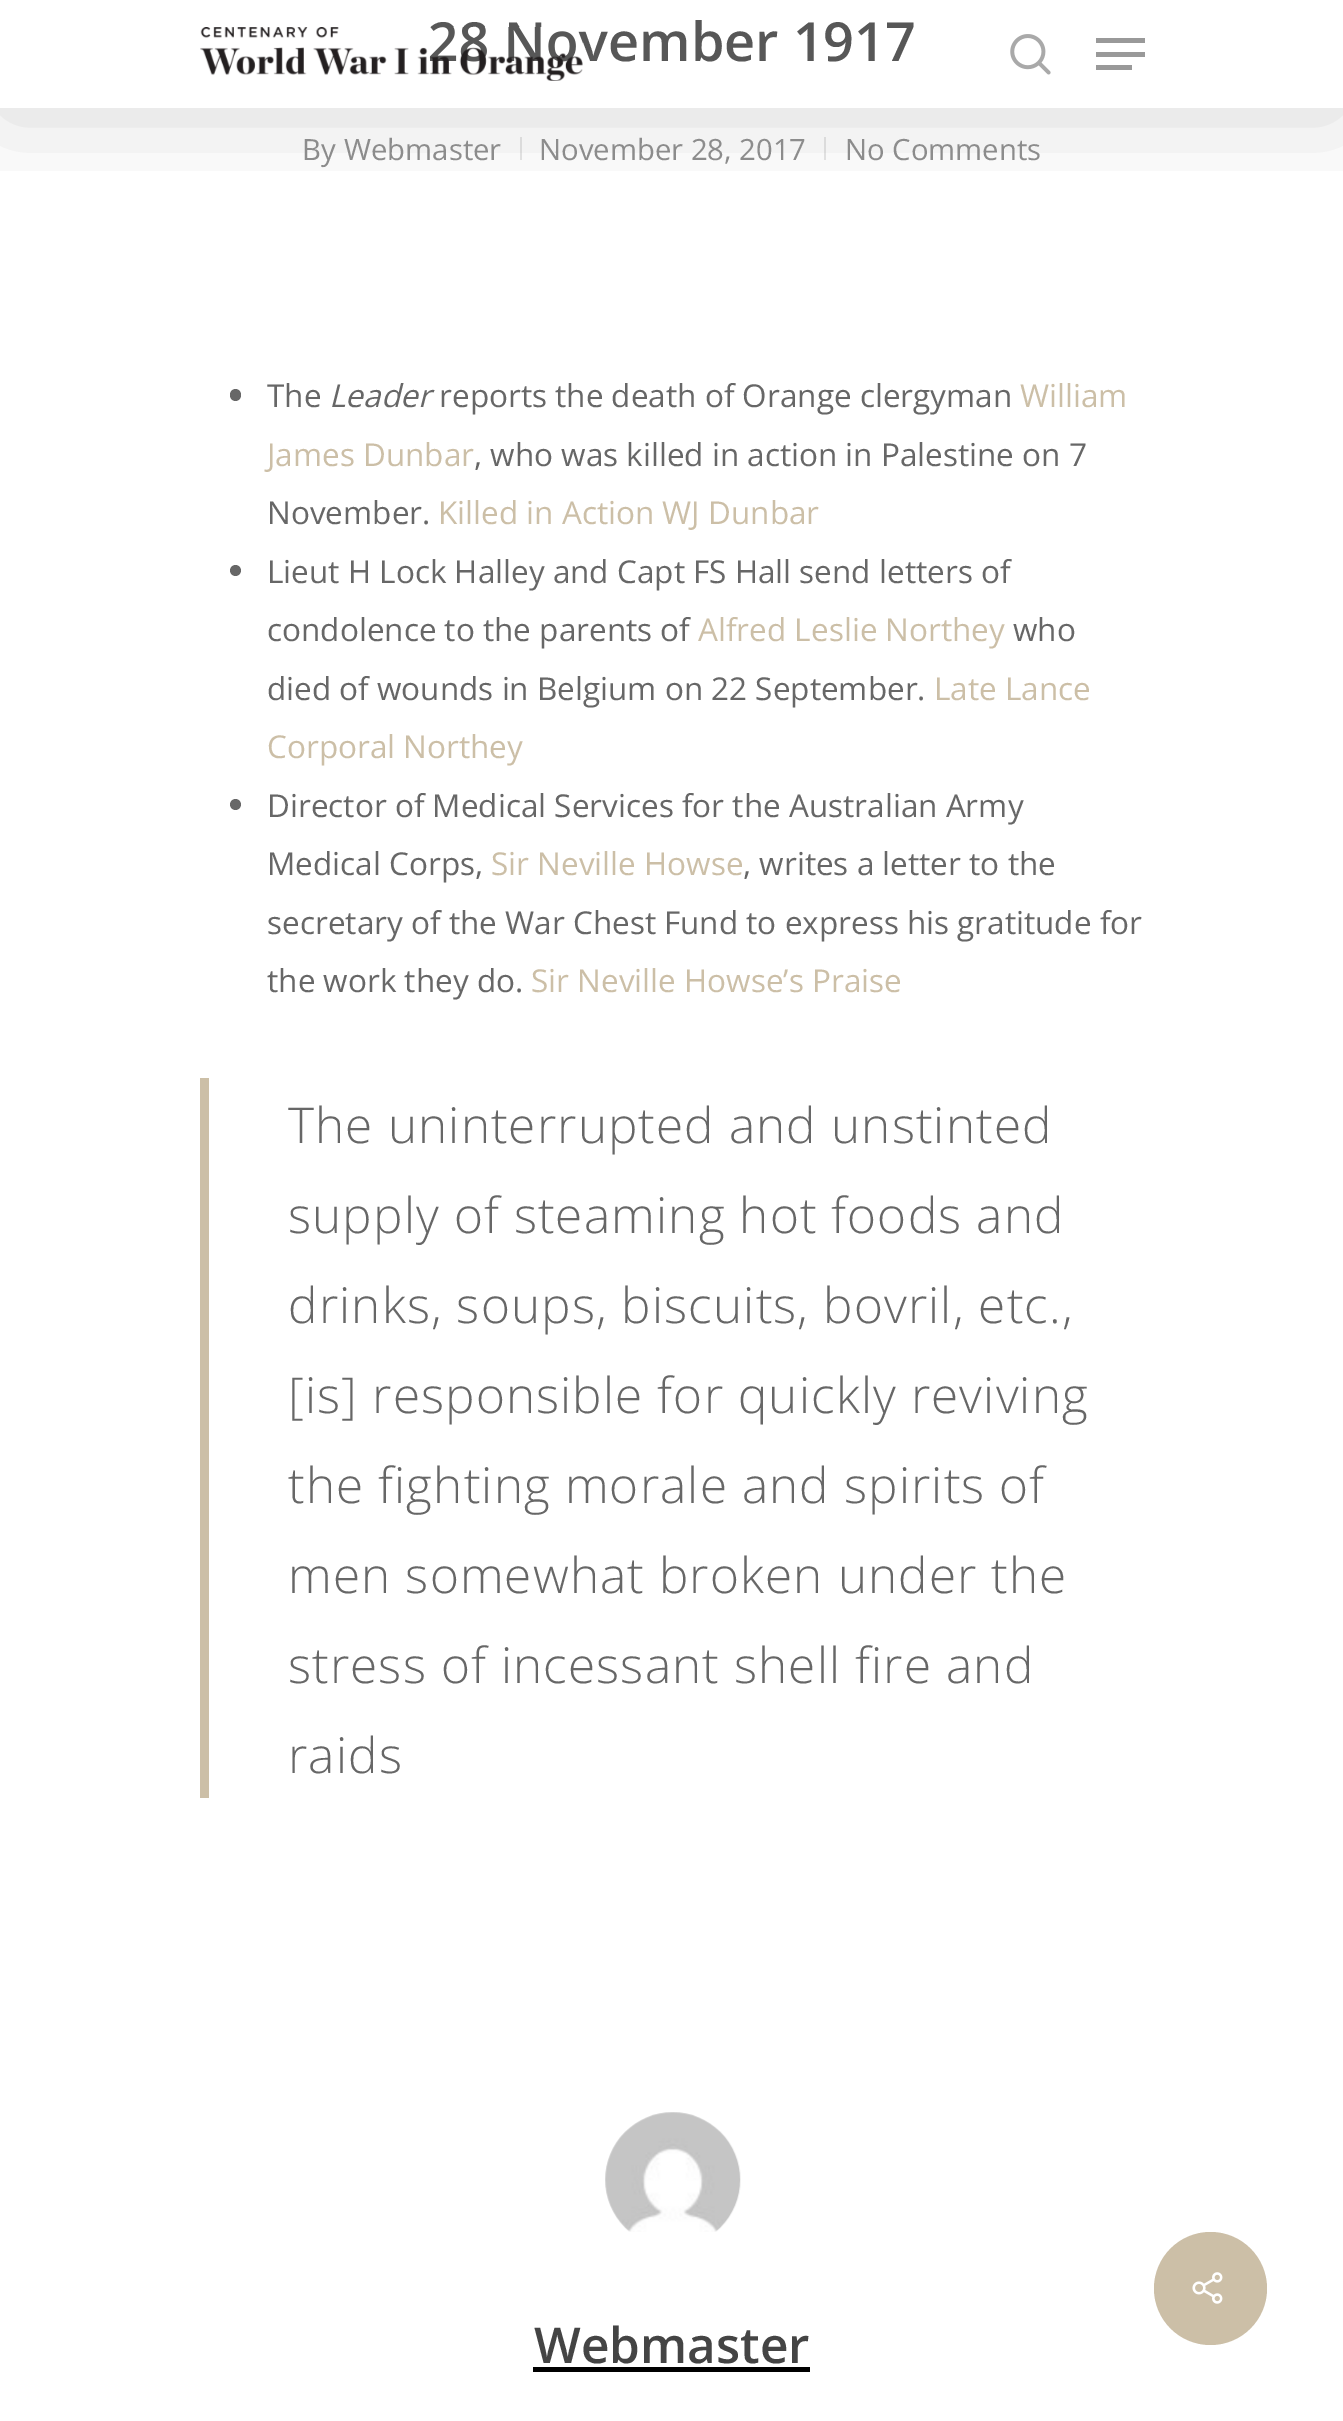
%!PS
<< /PageSize [1343 2421] /PageUsesTransparency true >> setpagedevice
/rgb { dup -16 bitshift 255 div exch dup -8 bitshift 255 and 255 div exch 255 and 255 div setrgbcolor } def
/font { [ exch dup neg 0 0 3 -1 roll 0 0 ] selectfont } def
/text { moveto show } def
/alpha { dup .setfillconstantalpha .setstrokeconstantalpha } def
/circle { newpath 0 360 arc closepath } def
/roundrect { 5 dict begin { /r /h /w /y /x } { exch def } forall
  x r add y moveto x w add y 2 copy h add r arct x w add y h add x 1 index r arct
  x y h add x y r arct x y 2 copy exch w add exch r arct closepath end } def
/shadow { 12 dict begin { /a /b /q /h /w /y /x } { exch def } forall gsave /was 0 def
  9 -2 -9 { dup b mul 4 div /e exch def 1 sub .425 mul 2.718 exch exp 1 add a .99 .min exch div /now exch def
    1 1 now sub 1 was sub div sub alpha /was now def
    w h .min e 2 mul add 0 gt { x e sub y e sub w e 2 mul add h e 2 mul add
      q e add b .6 mul add w h .min 2 div e add .min 0 .max roundrect fill } if } for grestore end } def
/picture { 5 dict begin { /h /w /y /x /name } { exch def } forall
  gsave x y translate w h scale
  w h 8 [w 0 0 h 0 0] name (r) file false 3 colorimage grestore end } def
0 .pushpdf14devicefilter
0 2421 translate 1 -1 scale
4 setmiterlimit
/s1 { /OpenSans-SemiBold 54 font 16#575757 rgb } def
/s2 { /OpenSans-Regular 29.25 font 16#8C8C8C rgb } def
/s3 { /OpenSans-Regular 31.5 font 16#676767 rgb } def
/s4 { /OpenSans-Italic 31.5 font 16#676767 rgb } def
/s5 { /OpenSans-Regular 31.5 font 16#CCBFA7 rgb } def
/s6 { /OpenSans-SemiBold 49.5 font 16#444444 rgb } def
16#FFFFFF rgb
0 0 1343 2421 rectfill
16#E6E6E6 rgb
520 137 2 23 rectfill
824 137 2 23 rectfill
gsave
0 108 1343 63 rectclip
16#000000 rgb
0 7 1343 108 0 50.5 0.15 shadow
grestore
s1
(28 November 1917) 428 61 text
(pic1.raw) 200 27 383 54 picture
(pic2.raw) 1010 34 41 41 picture
16#999999 rgb
1096 38 49 5 rectfill
1096 65 36 5 rectfill
1096 52 49 5 rectfill
s2
(By) 302 160 text
(Webmaster) 344 160 text
(November 28, 2017) 539 160 text
(No Comments) 845 160 text
16#676767 rgb
230 389 11 12 5.5 roundrect fill
s3
(The) 267 407 text
s4
(Leader) 329 407 text
s3
(reports the death of Orange clergyman) 439 407 text
s5
(William) 1020 407 text
(James Dunbar) 267 466 text
s3
(, who was killed in action in Palestine on 7) 474 466 text
(November.) 267 524 text
s5
(Killed in Action WJ Dunbar) 438 524 text
16#676767 rgb
235.5 570.5 5.5 circle fill
(Lieut H Lock Halley and Capt FS Hall send letters of) 267 583 text
(condolence to the parents of) 267 641 text
s5
(Alfred Leslie Northey) 698 641 text
s3
(who) 1013 641 text
(died of wounds in Belgium on 22 September.) 267 700 text
s5
(Late Lance) 934 700 text
(Corporal Northey) 267 758 text
16#676767 rgb
235.5 804.5 5.5 circle fill
(Director of Medical Services for the Australian Army) 267 817 text
(Medical Corps,) 267 875 text
s5
(Sir Neville Howse) 491 875 text
s3
(, writes a letter to the) 743 875 text
(secretary of the War Chest Fund to express his gratitude for) 267 934 text
(the work they do.) 267 992 text
s5
(Sir Neville Howse’s Praise) 531 992 text
200 1078 9 720 rectfill
/OpenSans-Light 49.5 font
16#676767 rgb
288 1143 moveto 1.1 0 (The uninterrupted and unstinted) ashow
288 1233 moveto 1.1 0 (supply of steaming hot foods and) ashow
288 1323 moveto 1.1 0 (drinks, soups, biscuits, bovril, etc.,) ashow
288 1413 moveto 1.1 0 ([is] responsible for quickly reviving) ashow
288 1503 moveto 1.1 0 (the fighting morale and spirits of) ashow
288 1593 moveto 1.1 0 (men somewhat broken under the) ashow
288 1683 moveto 1.1 0 (stress of incessant shell fire and) ashow
288 1773 moveto 1.1 0 (raids) ashow
(pic3.raw) 605 2112 136 120 picture
s6
(Webmaster) 534 2363 text
16#000000 rgb
533 2367 277 5 rectfill
16#CCBFA7 rgb
1210.5 2288.5 56.5 circle fill
(pic4.raw) 1192 2272 31 32 picture
.poppdf14devicefilter showpage
